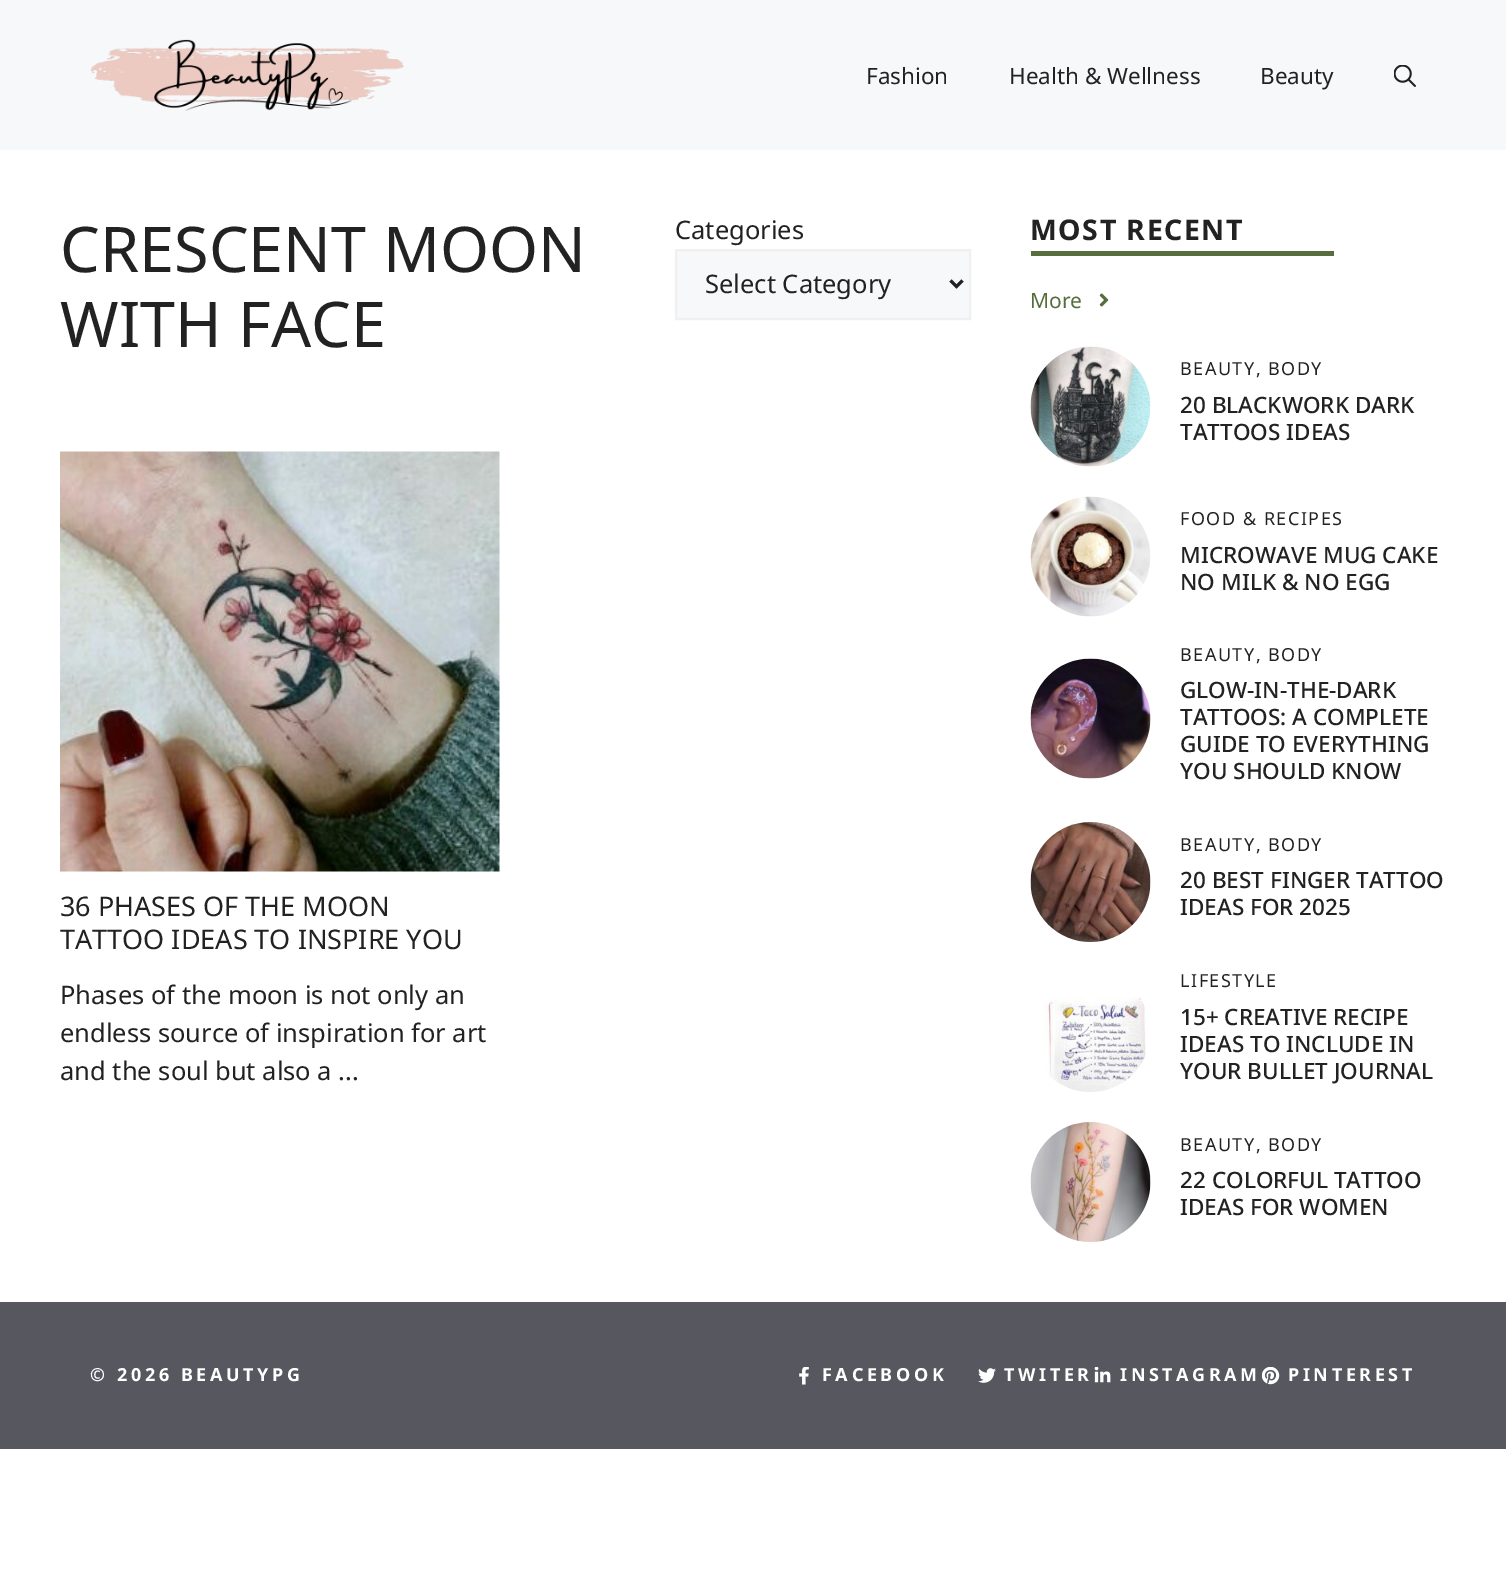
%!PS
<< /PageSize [1506 1593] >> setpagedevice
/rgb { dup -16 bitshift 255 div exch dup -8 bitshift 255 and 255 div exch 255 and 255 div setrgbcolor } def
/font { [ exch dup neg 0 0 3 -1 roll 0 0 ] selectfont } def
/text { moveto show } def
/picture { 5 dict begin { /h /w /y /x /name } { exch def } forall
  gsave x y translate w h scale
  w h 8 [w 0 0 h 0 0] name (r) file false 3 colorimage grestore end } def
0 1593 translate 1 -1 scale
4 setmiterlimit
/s1 { /NotoSans-Regular 22.5 font 16#222222 rgb } def
/s2 { /NotoSans-Regular 63 font 16#222222 rgb } def
/s3 { /NotoSans-Regular 25.5 font 16#222222 rgb } def
/s4 { /NotoSans-Regular 27 font 16#222222 rgb } def
/s5 { /NotoSans-Regular 21 font 16#566E3D rgb } def
/s6 { /NotoSans-Medium 22.5 font 16#222222 rgb } def
16#FFFFFF rgb
0 0 1506 1593 rectfill
16#F7F8F9 rgb
0 0 1506 150 rectfill
(pic1.raw) 90 39 315 72 picture
s1
(Fashion) 866 84 text
(Health & Wellness) 1009 84 text
(Beauty) 1260 84 text
(pic2.raw) 1394 65 22 22 picture
s2
(CRESCENT MOON) 60 272 text
(WITH FACE) 60 347 text
s3
(Categories) 675 239 text
16#F7F8F9 rgb
676 250 moveto 970 250 lineto 970 319 lineto 676 319 lineto closepath gsave fill grestore
16#F0F0F0 rgb
2 setlinewidth
stroke
16#222222 rgb
3 setlinewidth
950.5 280.5 moveto 956.5 286.5 lineto 962.5 280.5 lineto stroke
(Select Category) 705 293 text
(pic3.raw) 60 451 440 421 picture
s4
(36 PHASES OF THE MOON) 60 916 text
(TATTOO IDEAS TO INSPIRE YOU) 60 949 text
s3
(Phases of the moon is not only an) 60 1004 text
(endless source of inspiration for art) 60 1042 text
(and the soul but also a ...) 60 1080 text
/NotoSans-Bold 28.5 font
1030 240 moveto 1.5 0 (MOST RECENT) ashow
16#566E3D rgb
1031 251 303 5 rectfill
s5
(More) 1030 308 text
(pic4.raw) 1099 293 10 14 picture
(pic5.raw) 1030 346 121 121 picture
/NotoSans-Regular 18 font
16#222222 rgb
1180 375 moveto 1.5 0 (BEAUTY, BODY) ashow
s6
(20 BLACKWORK DARK) 1180 413 text
(TATTOOS IDEAS) 1180 440 text
(pic6.raw) 1030 496 121 121 picture
/NotoSans-Regular 18 font
1180 525 moveto 1.5 0 (FOOD & RECIPES) ashow
s6
(MICROWAVE MUG CAKE) 1180 563 text
(NO MILK & NO EGG) 1180 590 text
(pic7.raw) 1030 658 121 121 picture
/NotoSans-Regular 18 font
1180 661 moveto 1.5 0 (BEAUTY, BODY) ashow
s6
(GLOW-IN-THE-DARK) 1180 698 text
(TATTOOS: A COMPLETE) 1180 725 text
(GUIDE TO EVERYTHING) 1180 752 text
(YOU SHOULD KNOW) 1180 779 text
(pic8.raw) 1030 822 121 120 picture
/NotoSans-Regular 18 font
1180 851 moveto 1.5 0 (BEAUTY, BODY) ashow
s6
(20 BEST FINGER TATTOO) 1180 888 text
(IDEAS FOR 2025) 1180 915 text
(pic9.raw) 1044 997 102 95 picture
/NotoSans-Regular 18 font
1180 987 moveto 1.5 0 (LIFESTYLE) ashow
s6
(15+ CREATIVE RECIPE) 1180 1025 text
(IDEAS TO INCLUDE IN) 1180 1052 text
(YOUR BULLET JOURNAL) 1180 1079 text
(pic10.raw) 1030 1122 121 120 picture
/NotoSans-Regular 18 font
1180 1151 moveto 1.5 0 (BEAUTY, BODY) ashow
s6
(22 COLORFUL TATTOO) 1180 1188 text
(IDEAS FOR WOMEN) 1180 1215 text
16#575760 rgb
0 1302 1506 147 rectfill
/NotoSans-Bold 18 font
16#FFFFFF rgb
90 1381 moveto 3.6 0 (© 2026 BEAUTYPG) ashow
(pic11.raw) 799 1367 10 18 picture
822 1381 moveto 3.6 0 (FACEBOOK) ashow
(pic12.raw) 978 1368 18 15 picture
1004 1381 moveto 3.6 0 (TWITER) ashow
(pic13.raw) 1094 1367 17 16 picture
1120 1381 moveto 3.6 0 (INSTAGRAM) ashow
(pic14.raw) 1262 1367 18 18 picture
1288 1381 moveto 3.6 0 (PINTEREST) ashow
showpage
